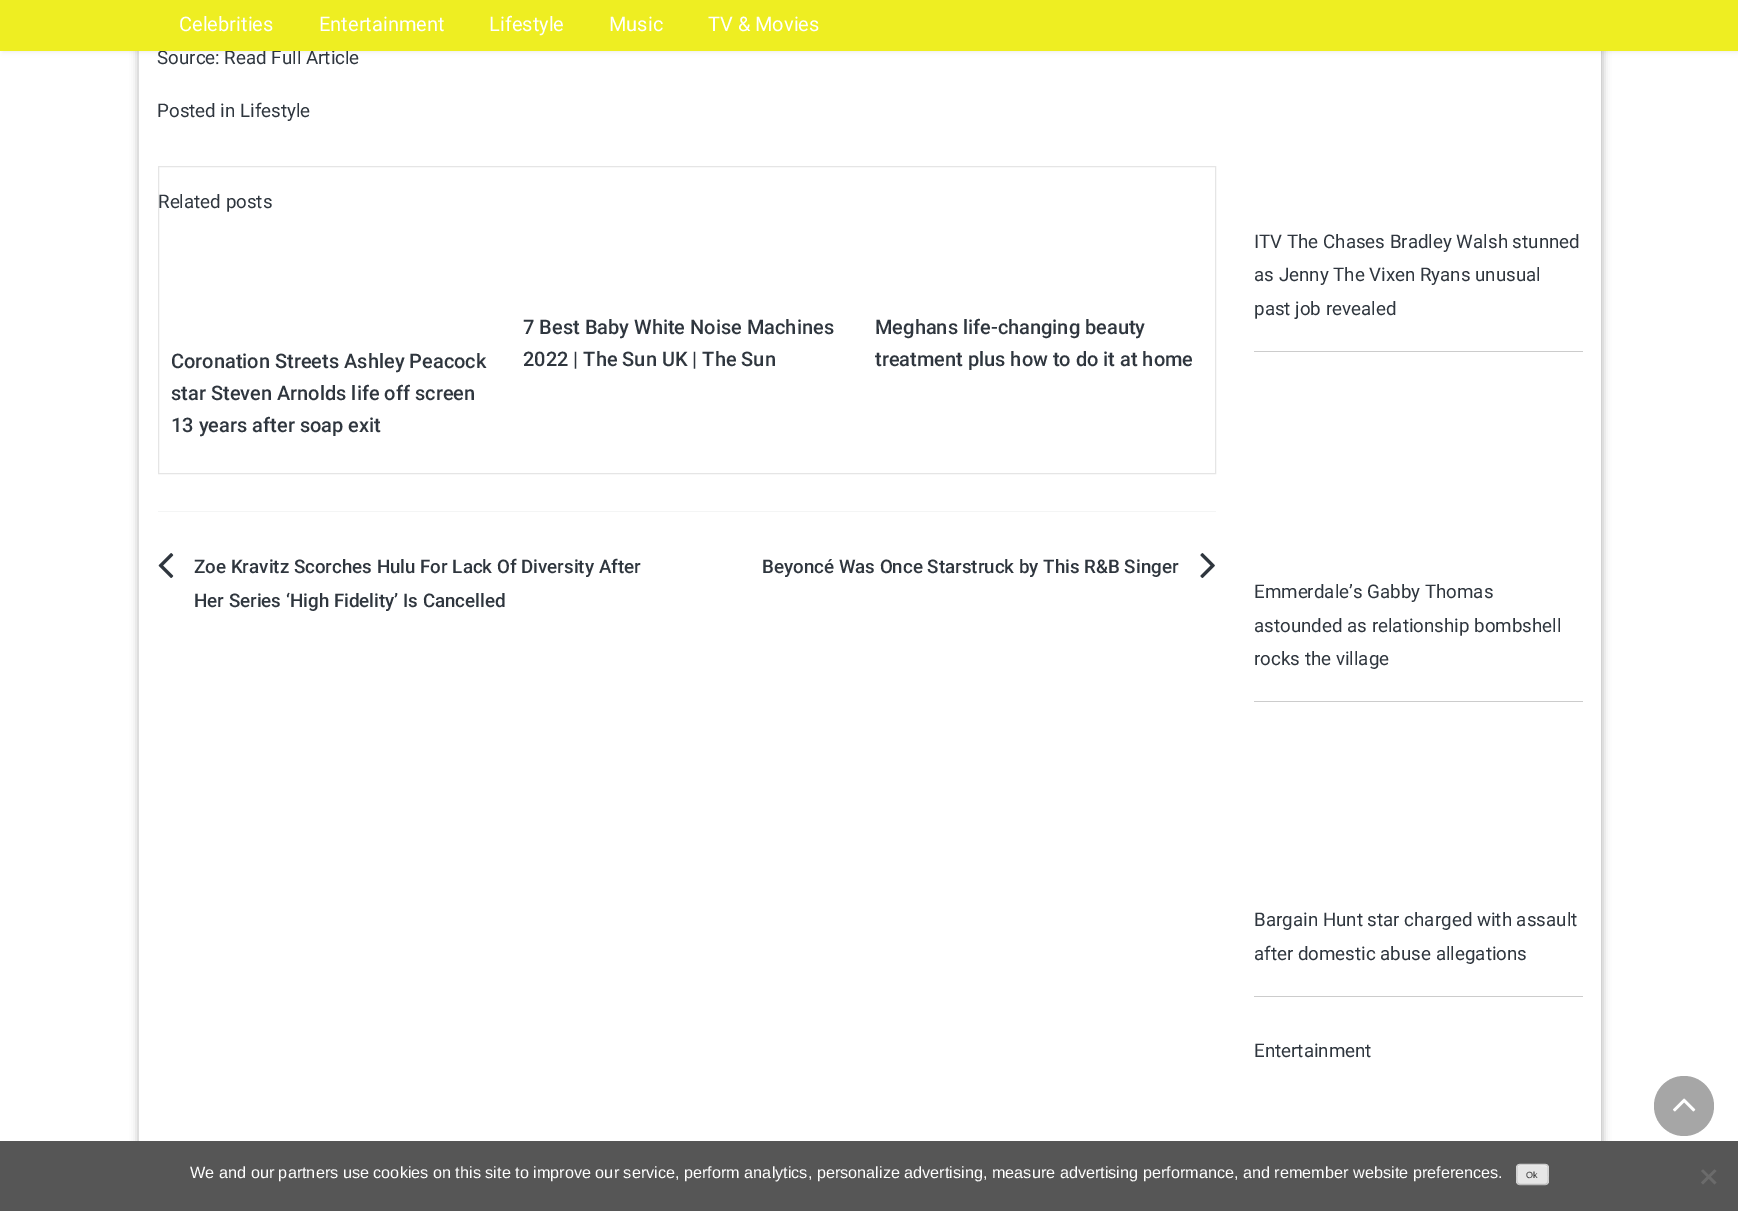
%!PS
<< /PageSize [1738 1211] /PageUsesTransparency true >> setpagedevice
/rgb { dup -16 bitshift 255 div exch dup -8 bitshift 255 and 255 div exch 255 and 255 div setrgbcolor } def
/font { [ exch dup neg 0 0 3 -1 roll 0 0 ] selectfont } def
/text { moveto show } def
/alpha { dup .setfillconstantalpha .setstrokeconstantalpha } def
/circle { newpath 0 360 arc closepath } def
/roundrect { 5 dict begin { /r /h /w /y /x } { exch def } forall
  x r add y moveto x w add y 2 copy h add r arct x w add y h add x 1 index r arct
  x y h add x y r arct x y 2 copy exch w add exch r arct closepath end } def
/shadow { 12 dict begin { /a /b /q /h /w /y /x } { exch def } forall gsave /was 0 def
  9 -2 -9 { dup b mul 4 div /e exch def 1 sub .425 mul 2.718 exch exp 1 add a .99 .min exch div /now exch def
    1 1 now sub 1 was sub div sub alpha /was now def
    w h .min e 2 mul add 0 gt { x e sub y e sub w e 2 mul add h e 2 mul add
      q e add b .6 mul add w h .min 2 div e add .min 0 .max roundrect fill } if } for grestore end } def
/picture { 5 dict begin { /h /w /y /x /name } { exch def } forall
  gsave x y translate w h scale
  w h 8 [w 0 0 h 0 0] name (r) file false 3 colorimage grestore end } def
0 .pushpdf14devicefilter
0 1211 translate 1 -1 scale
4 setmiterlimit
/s1 { /Roboto-Regular 18.75 font 16#2F363E rgb } def
/s2 { /Roboto-Regular 20 font 16#FFFFFF rgb } def
/s3 { /Roboto-Medium 20 font 16#2F363E rgb } def
/s4 { /Roboto-Medium 18.75 font 16#2F363E rgb } def
/s5 { /LiberationSans-Regular 16.25 font 16#FFFFFF rgb } def
/s6 { /LiberationSans-Regular 9 font 16#2E2E2E rgb } def
16#FFFFFF rgb
0 0 1738 1211 rectfill
gsave
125 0 moveto 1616 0 lineto 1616 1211 lineto 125 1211 lineto closepath 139 -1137 moveto 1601 -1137 lineto 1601 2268 lineto 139 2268 lineto closepath eoclip newpath
16#000000 rgb
138 -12 1465 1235 0 4 0.25 shadow
grestore
16#000000 rgb
3 0 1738 51 0 3 0.1 shadow
s1
(Source: Read Full Article) 157 64 text
16#EEEE22 rgb
0 0 1738 51 rectfill
s2
(Celebrities) 179 31 text
(Entertainment) 319 31 text
(Lifestyle) 489 31 text
(Music) 609 31 text
(TV & Movies) 708 31 text
s1
(Posted in Lifestyle) 157 117 text
16#E5E5E5 rgb
158.5 166.5 1057 307 rectstroke
s1
(Related posts) 158 208 text
s3
(7 Best Baby White Noise Machines) 523 334 text
(2022 | The Sun UK | The Sun) 523 366 text
(Meghans life-changing beauty) 875 334 text
(treatment plus how to do it at home) 875 366 text
(Coronation Streets Ashley Peacock) 171 368 text
(star Steven Arnolds life off screen) 171 400 text
(13 years after soap exit) 171 432 text
16#F4F5F5 rgb
158 511 1058 1 rectfill
(pic1.raw) 158 553 16 25 picture
s4
(Zoe Kravitz Scorches Hulu For Lack Of Diversity After) 194 573 text
(Her Series ‘High Fidelity’ Is Cancelled) 194 607 text
(Beyoncé Was Once Starstruck by This R&B Singer) 762 573 text
(pic2.raw) 1200 553 15 25 picture
s1
(ITV The Chases Bradley Walsh stunned) 1254 248 text
(as Jenny The Vixen Ryans unusual) 1254 281 text
(past job revealed) 1254 315 text
16#CCCCCC rgb
1254 351 329 1 rectfill
s1
(Emmerdale’s Gabby Thomas) 1254 598 text
(astounded as relationship bombshell) 1254 632 text
(rocks the village) 1254 665 text
16#CCCCCC rgb
1254 701 329 1 rectfill
s1
(Bargain Hunt star charged with assault) 1254 926 text
(after domestic abuse allegations) 1254 960 text
16#CCCCCC rgb
1254 996 329 1 rectfill
s1
(Entertainment) 1254 1057 text
16#A6A6A6 rgb
1684 1106 30 circle fill
(pic3.raw) 1673 1098 23 14 picture
16#565656 rgb
0 1141 1738 70 rectfill
s5
(We and our partners use cookies on this site to improve our service, perform analytics, personalize advertising, measure advertising performance, and remember website preferences.) 190 1178 text
16#E6E6E6 rgb
1516 1164 33 21 4 roundrect fill
16#F3F3F3 rgb
1520 1166 moveto 1541 1166 lineto 1546.5 1166 1548 1166.5 1548 1170 curveto 1548 1167.5 lineto 1548 1166 1547 1165 1545.5 1165 curveto 1520.5 1165 lineto 1519.5 1165 1518 1166 1518 1167 curveto 1518.5 1166.5 1519 1166 1520 1166 curveto closepath 1548 1181.5 moveto 1548 1182 lineto closepath eofill
16#BBBBBB rgb
1.2 setlinewidth
1547 1183.5 moveto 1546.5 1184 1546 1184.5 1545 1184.5 curveto 1520 1184.5 lineto 1519 1184.5 1518.5 1184 1518 1183.5 curveto stroke
16#CCCCCC rgb
1518 1183.5 moveto 1516 1181.5 1517 1176.5 1517 1174.5 curveto 1517 1167 lineto 1517.5 1163.5 1522 1164.5 1524 1164.5 curveto 1541 1164.5 lineto 1543 1164.5 1547.5 1163.5 1548 1167 curveto 1548 1174.5 lineto 1548 1176.5 1549 1181.5 1547 1183.5 curveto stroke
s6
(Ok) 1526 1178 text
16#6B6B6B rgb
1714.5 1169.5 moveto 1716.5 1171 lineto 1703 1184.5 lineto 1701 1182.5 lineto closepath fill
1701 1171 moveto 1703 1169.5 lineto 1716.5 1182.5 lineto 1714.5 1184.5 lineto closepath fill
.poppdf14devicefilter showpage
